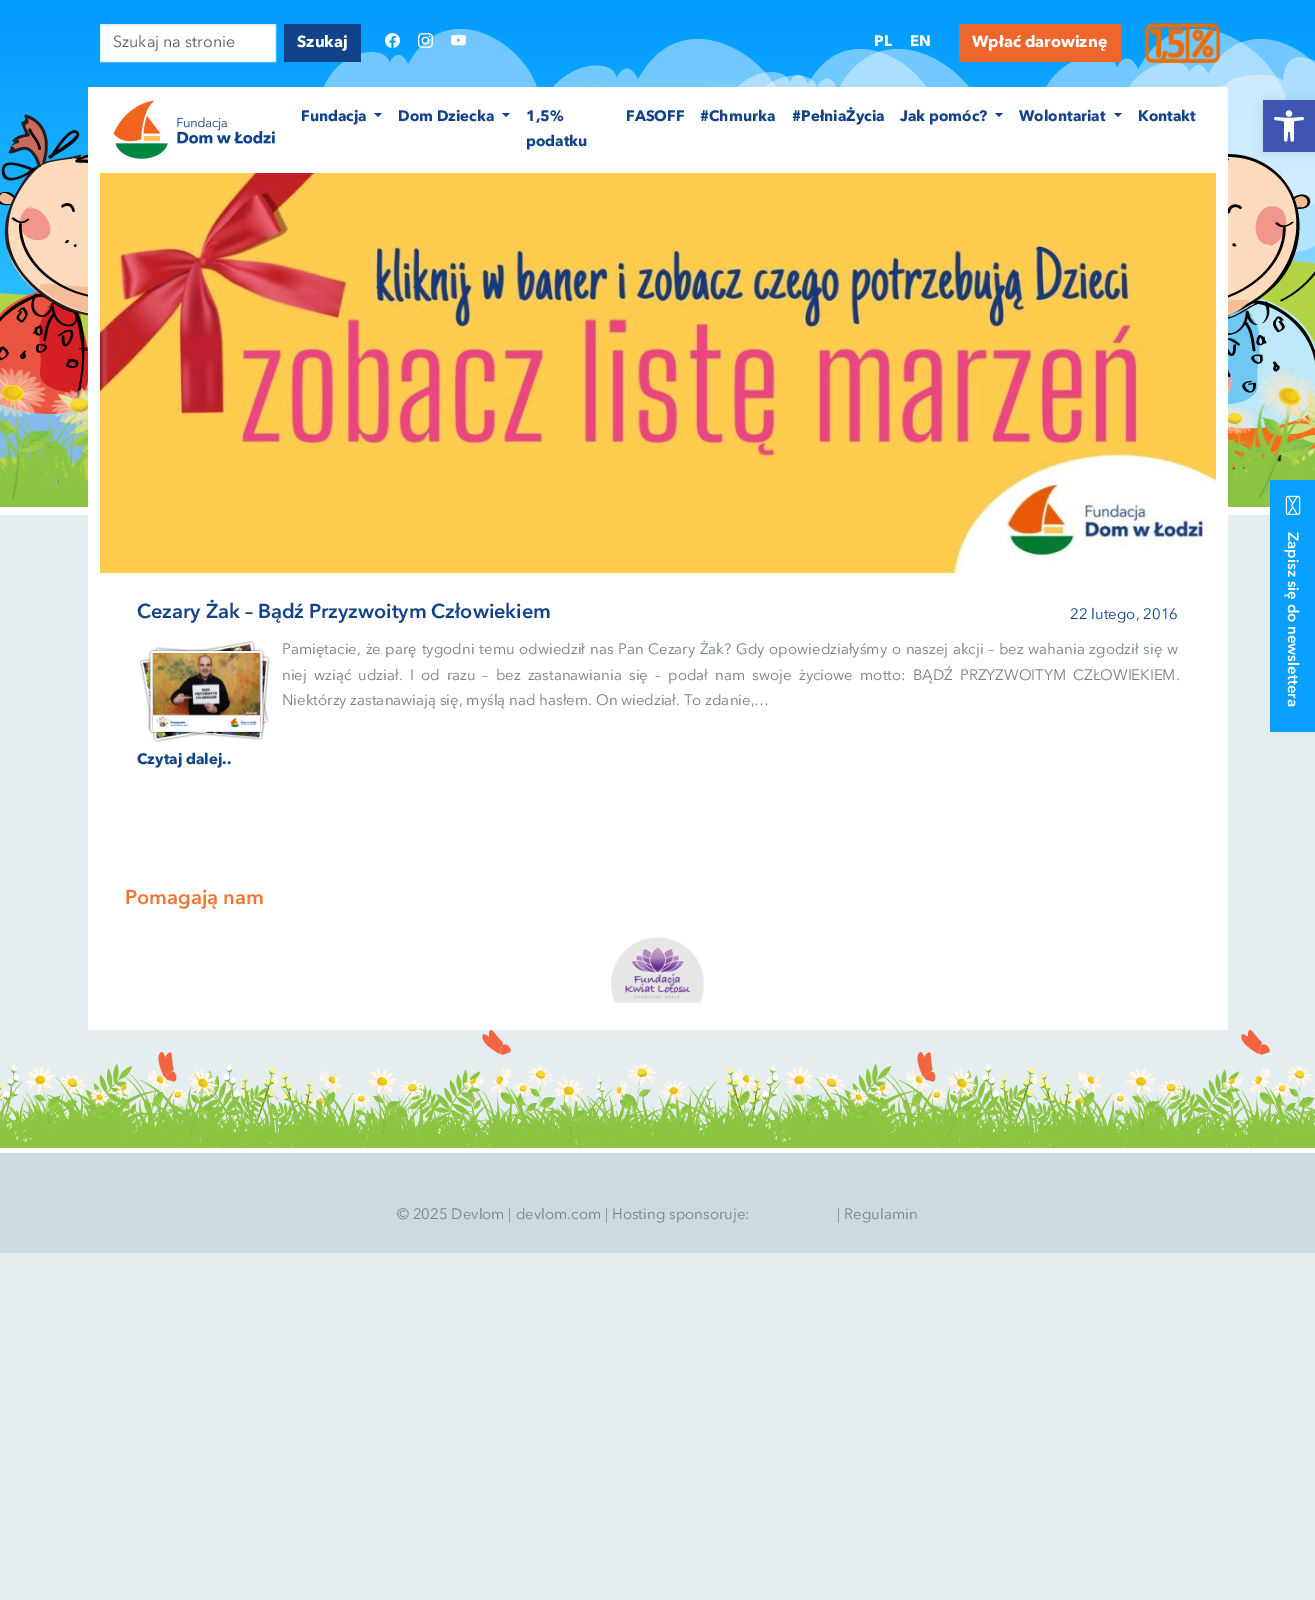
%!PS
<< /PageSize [1315 1600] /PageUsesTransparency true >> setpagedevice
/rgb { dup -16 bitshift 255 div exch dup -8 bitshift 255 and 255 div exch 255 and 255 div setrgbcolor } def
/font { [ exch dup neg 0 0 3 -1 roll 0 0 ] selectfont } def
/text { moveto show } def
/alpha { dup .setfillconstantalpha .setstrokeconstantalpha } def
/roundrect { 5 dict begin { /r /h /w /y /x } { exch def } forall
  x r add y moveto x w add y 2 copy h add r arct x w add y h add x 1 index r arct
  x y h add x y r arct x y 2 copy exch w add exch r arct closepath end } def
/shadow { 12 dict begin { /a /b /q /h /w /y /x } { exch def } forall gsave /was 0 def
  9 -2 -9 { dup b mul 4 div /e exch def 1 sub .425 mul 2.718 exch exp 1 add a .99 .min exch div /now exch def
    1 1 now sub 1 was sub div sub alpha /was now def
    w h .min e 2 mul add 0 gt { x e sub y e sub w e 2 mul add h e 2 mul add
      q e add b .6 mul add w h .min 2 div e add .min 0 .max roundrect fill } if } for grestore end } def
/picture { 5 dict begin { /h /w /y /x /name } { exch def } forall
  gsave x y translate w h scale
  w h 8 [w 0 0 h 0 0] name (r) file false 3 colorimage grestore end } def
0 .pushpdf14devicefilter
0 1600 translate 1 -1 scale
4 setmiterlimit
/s1 { /AvenirNext-Regular 16 font 16#595C5F rgb } def
/s2 { /AvenirNext-Bold 16 font 16#FFFFFF rgb } def
/s3 { /AvenirNext-Bold 15 font 16#FFFFFF rgb } def
/s4 { /AvenirNext-Bold 15 font 16#124389 rgb } def
/s5 { /AvenirNext-SemiBold 20 font 16#124389 rgb } def
/s6 { /AvenirNext-Regular 15 font 16#124389 rgb } def
/s7 { /AvenirNext-Regular 15 font 16#777F80 rgb } def
/s8 { /AvenirNext-SemiBold 20 font 16#EF7731 rgb } def
/s9 { /AvenirNext-Regular 15 font 16#7D8388 rgb } def
16#E4EEF0 rgb
0 0 1315 1600 rectfill
(pic1.raw) 0 0 1315 296 picture
16#FFFFFF rgb
0 507 1270 8 rectfill
(pic2.raw) 324 29 213 58 picture
(pic7.raw) 539 79 233 8 picture
(pic5.raw) 737 49 190 38 picture
(pic8.raw) 764 49 205 38 picture
(pic3.raw) 553 39 224 48 picture
(pic6.raw) 1129 39 186 225 picture
(pic9.raw) 1218 57 97 149 picture
(pic4.raw) 1046 29 269 223 picture
(pic10.raw) 0 260 1315 231 picture
(pic11.raw) 0 114 88 376 picture
(pic12.raw) 79 347 9 3 picture
(pic13.raw) 1228 154 87 316 picture
(pic14.raw) 0 368 1315 139 picture
101 26 174 35 rectfill
16#ECECEC rgb
101 25 174 1 rectfill
16#E4EEF0 rgb
100.5 24.5 175 37 rectstroke
s1
(Szukaj na stronie) 113 47 text
16#124389 rgb
284 24 77 38 rectfill
s2
(Szukaj) 297 47 text
(pic15.raw) 385 33 15 15 picture
(pic16.raw) 418 33 15 15 picture
(pic17.raw) 451 34 15 12 picture
s3
(PL) 874 46 text
(EN) 910 46 text
16#ED662C rgb
959 24 162 38 rectfill
s2
(Wpłać darowiznę) 972 47 text
(pic18.raw) 1145 23 75 40 picture
88 87 1140 943 rectfill
(pic19.raw) 113 100 162 59 picture
s4
(Fundacja) 301 121 text
374 113 moveto 382 113 lineto 378 117 lineto closepath fill
(Dom Dziecka) 398 121 text
502 113 moveto 510 113 lineto 506 117 lineto closepath fill
(1,5%) 526 121 text
(podatku) 526 146 text
(FASOFF) 626 121 text
(#Chmurka) 700 121 text
(#PełniaŻycia) 792 121 text
(Jak pomóc?) 900 121 text
995 113 moveto 1003 113 lineto 999 117 lineto closepath fill
(Wolontariat) 1019 121 text
1114 113 moveto 1122 113 lineto 1118 117 lineto closepath fill
(Kontakt) 1138 121 text
(pic20.raw) 100 173 1116 400 picture
s5
(Cezary Żak – Bądź Przyzwoitym Człowiekiem) 137 618 text
s6
(22 lutego, 2016) 1070 619 text
16#777F80 rgb
282 654 moveto 1 0 32 (Pamiętacie, że parę tygodni temu odwiedził nas Pan Cezary Żak? Gdy opowiedziałyśmy o naszej akcji – bez wahania zgodził się w) widthshow
282 680 moveto 3.4 0 32 (niej wziąć udział. I od razu – bez zastanawiania się – podał nam swoje życiowe motto: BĄDŹ PRZYZWOITYM CZŁOWIEKIEM.) widthshow
(Niektórzy zastanawiają się, myślą nad hasłem. On wiedział. To zdanie,…) 282 705 text
s4
(Czytaj dalej..) 137 764 text
(pic21.raw) 139 640 131 103 picture
(pic22.raw) 153 653 107 77 picture
s8
(Pomagają nam) 125 904 text
(pic23.raw) 611 937 93 66 picture
16#08A0FF rgb
1270 480 45 252 rectfill
(pic24.raw) 1285 495 16 20 picture
/AvenirNext-SemiBold 15 font
16#FFFFFF rgb
gsave 1288 532 translate 90 rotate 0 0 moveto (Zapisz się do newslettera) show grestore
16#000000 rgb
1263 100 52 52 0 5 0.1 shadow
16#4054B2 rgb
1263 100 52 52 rectfill
(pic25.raw) 1274 110 30 32 picture
(pic26.raw) 0 1030 1315 118 picture
16#CDDADF rgb
0 1153 1315 100 rectfill
16#FFFFFF rgb
0 1148 1315 5 rectfill
s9
(© 2025 Devlom | devlom.com | Hosting sponsoruje:) 397 1219 text
(| Regulamin) 837 1219 text
.poppdf14devicefilter showpage
